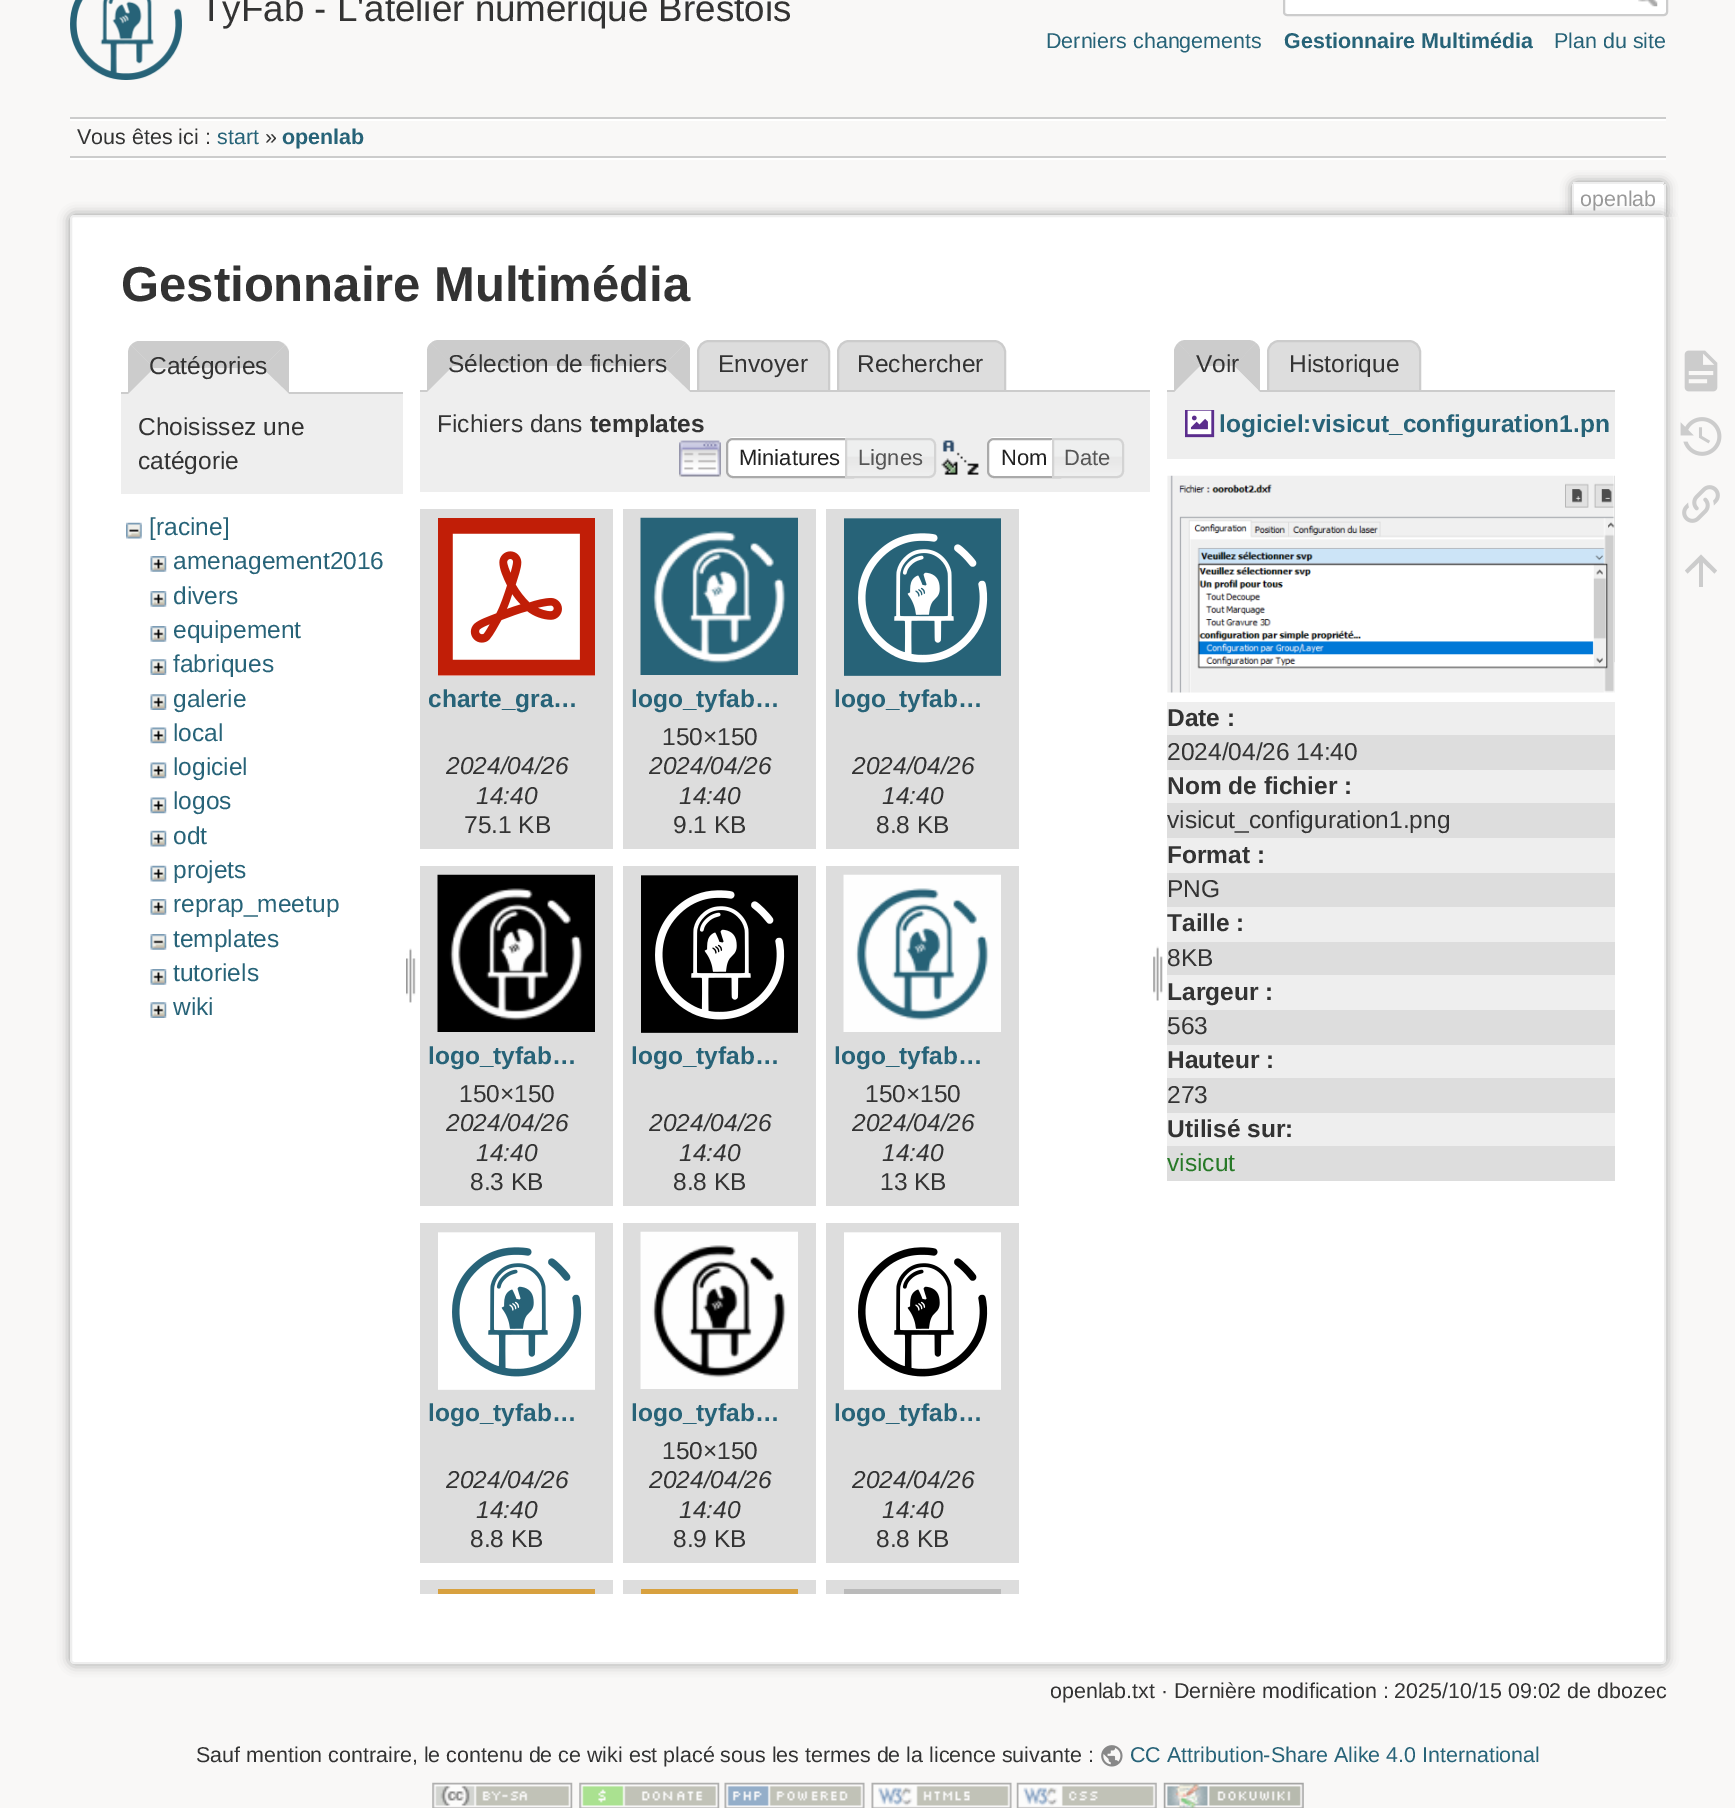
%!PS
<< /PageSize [1735 1808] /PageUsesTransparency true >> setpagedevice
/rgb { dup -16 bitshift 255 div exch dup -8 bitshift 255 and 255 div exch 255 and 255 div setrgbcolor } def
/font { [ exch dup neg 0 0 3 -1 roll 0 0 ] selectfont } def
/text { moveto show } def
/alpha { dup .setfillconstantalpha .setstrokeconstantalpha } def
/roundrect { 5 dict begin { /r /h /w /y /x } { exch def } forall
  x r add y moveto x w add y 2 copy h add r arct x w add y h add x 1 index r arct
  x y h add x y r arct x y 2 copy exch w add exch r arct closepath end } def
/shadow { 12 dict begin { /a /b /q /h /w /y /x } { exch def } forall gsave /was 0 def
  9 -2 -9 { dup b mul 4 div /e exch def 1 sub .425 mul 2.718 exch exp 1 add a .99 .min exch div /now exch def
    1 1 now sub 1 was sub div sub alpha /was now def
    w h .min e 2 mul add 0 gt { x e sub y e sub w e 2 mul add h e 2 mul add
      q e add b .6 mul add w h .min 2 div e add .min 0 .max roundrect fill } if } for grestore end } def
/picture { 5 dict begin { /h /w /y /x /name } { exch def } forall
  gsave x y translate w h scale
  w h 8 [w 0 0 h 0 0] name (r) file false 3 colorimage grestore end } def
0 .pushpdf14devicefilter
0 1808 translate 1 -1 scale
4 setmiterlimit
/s1 { /LiberationSans-Regular 36.75 font 16#333333 rgb } def
/s2 { /LiberationSans-Regular 21.45 font 16#276378 rgb } def
/s3 { /LiberationSans-Bold 21.45 font 16#276378 rgb } def
/s4 { /LiberationSans-Regular 21.45 font 16#333333 rgb } def
/s5 { /LiberationSans-Regular 21.45 font 16#999999 rgb } def
/s6 { /LiberationSans-Bold 49 font 16#333333 rgb } def
/s7 { /LiberationSans-Regular 24.5 font 16#333333 rgb } def
/s8 { /LiberationSans-Regular 24.5 font 16#276378 rgb } def
/s9 { /LiberationSans-Bold 24.5 font 16#333333 rgb } def
/s10 { /LiberationSans-Regular 22 font 16#212121 rgb } def
/s11 { /LiberationSans-Regular 22 font 16#555555 rgb } def
/s12 { /LiberationSans-Bold 24.5 font 16#276378 rgb } def
/s13 { /LiberationSans-Italic 24.5 font 16#333333 rgb } def
/s14 { /LiberationSans-Regular 24.5 font 16#277927 rgb } def
16#F9F8F7 rgb
0 0 1735 1808 rectfill
(pic1.raw) 70 0 112 80 picture
s1
(TyFab - L'atelier numérique Brestois) 200 21 text
16#FFFFFF rgb
1284 -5 383 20 3 roundrect gsave fill grestore
16#CCCCCC rgb
2 setlinewidth
stroke
(pic2.raw) 1638 0 20 7 picture
s2
(Derniers changements) 1046 48 text
s3
(Gestionnaire Multimédia) 1284 48 text
s2
(Plan du site) 1554 48 text
16#CCCCCC rgb
70 117 1596 2 rectfill
16#FFFFFF rgb
70 158 1596 2 rectfill
70 119 1596 2 rectfill
16#CCCCCC rgb
70 156 1596 2 rectfill
s4
(Vous êtes ici :) 77 144 text
s2
(start) 217 144 text
s4
(») 265 144 text
s3
(openlab) 282 144 text
gsave
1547 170 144 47 rectclip
16#999999 rgb
1572 182 94 35 4 5.5 1 shadow
grestore
16#FFFFFF rgb
1575 184 moveto 1662 184 lineto 1663 184 1664 185 1664 186 curveto 1664 217 lineto 1573 217 lineto 1573 186 lineto 1573 185 1574 184 1575 184 curveto closepath fill
16#EEEEEE rgb
1573 182 91 2 rectfill
1664 184 2 33 rectfill
1572 184 2 33 rectfill
s5
(openlab) 1580 206 text
70 215 1596 1449 4 6 1 shadow
16#FFFFFF rgb
71 216 1594 1447 3 roundrect gsave fill grestore
16#EEEEEE rgb
stroke
s6
(Gestionnaire Multimédia) 121 301 text
16#CCCCCC rgb
121 392 282 2 rectfill
16#EEEEEE rgb
140 341 moveto 277 341 lineto 283.5 341 289 346.5 289 353 curveto 289 394 lineto 128 394 lineto 128 353 lineto 128 346.5 133.5 341 140 341 curveto closepath fill
16#CCCCCC rgb
278 341 moveto 138 341 lineto 135 342 133 343 131 345 curveto 154 368 lineto 262 368 lineto 285 345 lineto 283 343 281 342 278 341 curveto closepath fill
285 345 moveto 262 368 lineto 289 394 lineto 289 352 lineto 288 349 287 347 285 345 curveto closepath fill
16#EEEEEE rgb
289 394 moveto 262 368 lineto 154 368 lineto 128 394 lineto closepath fill
16#CCCCCC rgb
128 394 moveto 154 368 lineto 131 345 lineto 129 347 128 350 128 354 curveto closepath fill
s7
(Catégories) 149 374 text
16#EEEEEE rgb
121 394 282 100 rectfill
s7
(Choisissez une) 138 435 text
(catégorie) 138 469 text
(pic3.raw) 126 522 16 17 picture
s8
([racine]) 149 535 text
(pic4.raw) 150 556 17 16 picture
(amenagement2016) 173 569 text
(pic4.raw) 150 591 17 16 picture
(divers) 173 604 text
(pic4.raw) 150 626 17 16 picture
(equipement) 173 638 text
(pic5.raw) 150 659 17 16 picture
(fabriques) 173 672 text
(pic5.raw) 150 694 17 16 picture
(galerie) 173 707 text
(pic6.raw) 150 727 17 17 picture
(local) 173 741 text
(pic6.raw) 150 762 17 17 picture
(logiciel) 173 775 text
(pic6.raw) 150 797 17 17 picture
(logos) 173 809 text
(pic7.raw) 150 830 17 17 picture
(odt) 173 844 text
(pic7.raw) 150 865 17 17 picture
(projets) 173 878 text
(pic4.raw) 150 899 17 16 picture
(reprap_meetup) 173 912 text
(pic8.raw) 150 934 17 16 picture
(templates) 173 947 text
(pic4.raw) 150 969 17 16 picture
(tutoriels) 173 981 text
(pic5.raw) 150 1002 17 16 picture
(wiki) 173 1015 text
(pic9.raw) 406 948 10 55 picture
16#DDDDDD rgb
709 341 moveto 818 341 lineto 824 341 829 346 829 352 curveto 829 391 lineto 698 391 lineto 698 352 lineto 698 346 703 341 709 341 curveto closepath gsave fill grestore
16#CCCCCC rgb
stroke
16#DDDDDD rgb
849 341 moveto 994 341 lineto 1000 341 1005 346 1005 352 curveto 1005 391 lineto 838 391 lineto 838 352 lineto 838 346 843 341 849 341 curveto closepath gsave fill grestore
16#CCCCCC rgb
stroke
420 390 730 2 rectfill
16#EEEEEE rgb
439 340 moveto 678 340 lineto 684.5 340 690 345.5 690 352 curveto 690 392 lineto 427 392 lineto 427 352 lineto 427 345.5 432.5 340 439 340 curveto closepath fill
16#CCCCCC rgb
439 340 moveto 436 340 433 341 431 343 curveto 453 366 lineto 663 366 lineto 686 343 lineto 684 341 680 340 677 340 curveto closepath fill
690 349 moveto 690 392 lineto 663 366 lineto 686 343 lineto 688 345 689 346 690 349 curveto closepath fill
16#EEEEEE rgb
690 392 moveto 663 366 lineto 453 366 lineto 427 392 lineto closepath fill
16#CCCCCC rgb
427 392 moveto 453 366 lineto 431 343 lineto 428 345 427 348 427 352 curveto closepath fill
s7
(Sélection de fichiers) 448 372 text
(Envoyer) 718 372 text
(Rechercher) 857 372 text
16#EEEEEE rgb
420 392 730 100 rectfill
s7
(Fichiers dans) 437 432 text
s9
(templates) 590 432 text
(pic10.raw) 679 440 42 37 picture
16#FFFFFF rgb
733 438 moveto 854 438 lineto 854 478 lineto 733 478 lineto 729 478 726 475 726 471 curveto 726 445 lineto 726 441 729 438 733 438 curveto closepath fill
(pic11.raw) 727 437 119 4 picture
16#AAAAAA rgb
733 439 moveto 853 439 lineto 853 477 lineto 733 477 lineto 729.5 477 727 474.5 727 471 curveto 727 445 lineto 727 441.5 729.5 439 733 439 curveto closepath stroke
s10
(Miniatures) 739 465 text
(pic12.raw) 845 437 91 40 picture
16#D3D3D3 rgb
846 439 moveto 929 439 lineto 932.5 439 935 441.5 935 445 curveto 935 471 lineto 935 474.5 932.5 477 929 477 curveto 846 477 lineto closepath stroke
s11
(Lignes) 858 465 text
(pic13.raw) 941 440 38 35 picture
16#FFFFFF rgb
994 438 moveto 1061 438 lineto 1061 478 lineto 994 478 lineto 990 478 987 475 987 471 curveto 987 445 lineto 987 441 990 438 994 438 curveto closepath fill
(pic14.raw) 987 437 65 6 picture
16#AAAAAA rgb
994 439 moveto 1060 439 lineto 1060 477 lineto 994 477 lineto 990.5 477 988 474.5 988 471 curveto 988 445 lineto 988 441.5 990.5 439 994 439 curveto closepath stroke
s10
(Nom) 1001 465 text
(pic15.raw) 1051 437 72 40 picture
16#D3D3D3 rgb
1053 439 moveto 1117 439 lineto 1120.5 439 1123 441.5 1123 445 curveto 1123 471 lineto 1123 474.5 1120.5 477 1117 477 curveto 1053 477 lineto closepath stroke
s11
(Date) 1064 465 text
16#DDDDDD rgb
420 509 193 340 rectfill
(pic16.raw) 438 518 157 158 picture
s12
(charte_gra…) 428 707 text
s13
(2024/04/26) 446 774 text
(14:40) 476 804 text
s7
(75.1 KB) 464 833 text
16#DDDDDD rgb
623 509 193 340 rectfill
(pic17.raw) 640 517 158 158 picture
s12
(logo_tyfab…) 631 707 text
s7
(150×150) 662 745 text
s13
(2024/04/26) 649 774 text
(14:40) 679 804 text
s7
(9.1 KB) 673 833 text
16#DDDDDD rgb
826 509 193 340 rectfill
(pic18.raw) 844 518 157 158 picture
s12
(logo_tyfab…) 834 707 text
s13
(2024/04/26) 852 774 text
(14:40) 882 804 text
s7
(8.8 KB) 876 833 text
16#DDDDDD rgb
420 866 193 340 rectfill
(pic19.raw) 437 874 158 158 picture
s12
(logo_tyfab…) 428 1064 text
s7
(150×150) 459 1102 text
s13
(2024/04/26) 446 1131 text
(14:40) 476 1161 text
s7
(8.3 KB) 470 1190 text
16#DDDDDD rgb
623 866 193 340 rectfill
(pic20.raw) 641 875 157 158 picture
s12
(logo_tyfab…) 631 1064 text
s13
(2024/04/26) 649 1131 text
(14:40) 679 1161 text
s7
(8.8 KB) 673 1190 text
16#DDDDDD rgb
826 866 193 340 rectfill
(pic21.raw) 843 874 158 158 picture
s12
(logo_tyfab…) 834 1064 text
s7
(150×150) 865 1102 text
s13
(2024/04/26) 852 1131 text
(14:40) 882 1161 text
s7
(13 KB) 880 1190 text
16#DDDDDD rgb
420 1223 193 340 rectfill
(pic22.raw) 438 1232 157 158 picture
s12
(logo_tyfab…) 428 1421 text
s13
(2024/04/26) 446 1488 text
(14:40) 476 1518 text
s7
(8.8 KB) 470 1547 text
16#DDDDDD rgb
623 1223 193 340 rectfill
(pic23.raw) 640 1231 158 158 picture
s12
(logo_tyfab…) 631 1421 text
s7
(150×150) 662 1459 text
s13
(2024/04/26) 649 1488 text
(14:40) 679 1518 text
s7
(8.9 KB) 673 1547 text
16#DDDDDD rgb
826 1223 193 340 rectfill
(pic24.raw) 844 1232 157 158 picture
s12
(logo_tyfab…) 834 1421 text
s13
(2024/04/26) 852 1488 text
(14:40) 882 1518 text
s7
(8.8 KB) 876 1547 text
16#DDDDDD rgb
420 1580 193 14 rectfill
16#D8A13F rgb
438 1589 157 5 rectfill
16#DDDDDD rgb
623 1580 193 14 rectfill
16#D8A13F rgb
641 1589 157 5 rectfill
16#DDDDDD rgb
826 1580 193 14 rectfill
16#BABABA rgb
844 1589 157 5 rectfill
(pic25.raw) 1153 946 10 55 picture
16#CCCCCC rgb
1186 340 moveto 1183 340 1180 341 1178 343 curveto 1200 366 lineto 1234 366 lineto 1256 343 lineto 1254 341 1251 340 1248 340 curveto closepath fill
16#DDDDDD rgb
1279 341 moveto 1409 341 lineto 1415 341 1420 346 1420 352 curveto 1420 391 lineto 1268 391 lineto 1268 352 lineto 1268 346 1273 341 1279 341 curveto closepath gsave fill grestore
16#CCCCCC rgb
stroke
1167 390 448 2 rectfill
1256 343 moveto 1259 345 1260 348 1260 352 curveto 1260 392 lineto 1234 366 lineto closepath fill
16#EEEEEE rgb
1260 392 moveto 1234 366 lineto 1200 366 lineto 1174 392 lineto closepath fill
16#CCCCCC rgb
1174 392 moveto 1200 366 lineto 1178 343 lineto 1176 345 1175 347 1174 350 curveto closepath fill
s7
(Voir) 1196 372 text
(Historique) 1289 372 text
16#EEEEEE rgb
1167 392 448 67 rectfill
(pic26.raw) 1185 410 30 28 picture
s12
(logiciel:visicut_configuration1.pn) 1219 432 text
(pic27.raw) 1167 475 448 218 picture
16#EEEEEE rgb
1167 702 448 33 rectfill
s9
(Date :) 1167 726 text
16#DDDDDD rgb
1167 735 448 35 rectfill
s7
(2024/04/26 14:40) 1167 760 text
16#EEEEEE rgb
1167 770 448 33 rectfill
s9
(Nom de fichier :) 1167 794 text
16#DDDDDD rgb
1167 803 448 35 rectfill
s7
(visicut_configuration1.png) 1167 828 text
16#EEEEEE rgb
1167 838 448 35 rectfill
s9
(Format :) 1167 863 text
16#DDDDDD rgb
1167 873 448 34 rectfill
s7
(PNG) 1167 897 text
16#EEEEEE rgb
1167 907 448 35 rectfill
s9
(Taille :) 1167 931 text
16#DDDDDD rgb
1167 942 448 33 rectfill
s7
(8KB) 1167 966 text
16#EEEEEE rgb
1167 975 448 35 rectfill
s9
(Largeur :) 1167 1000 text
16#DDDDDD rgb
1167 1010 448 35 rectfill
s7
(563) 1167 1034 text
16#EEEEEE rgb
1167 1045 448 33 rectfill
s9
(Hauteur :) 1167 1068 text
16#DDDDDD rgb
1167 1078 448 35 rectfill
s7
(273) 1167 1103 text
16#EEEEEE rgb
1167 1113 448 33 rectfill
s9
(Utilisé sur:) 1167 1137 text
16#DDDDDD rgb
1167 1146 448 35 rectfill
s14
(visicut) 1167 1171 text
s4
(openlab.txt · Dernière modification : 2025/10/15 09:02 de dbozec) 1050 1698 text
(pic28.raw) 1684 350 34 42 picture
(pic29.raw) 1680 417 42 39 picture
(pic30.raw) 1682 485 38 38 picture
16#CCCCCC rgb
1703 587 moveto 1699 587 lineto 1699 562.5 lineto 1687.5 573.5 lineto 1685 570.5 lineto 1701 554.5 lineto 1717 570.5 lineto 1714.5 573.5 lineto 1703 562.5 lineto closepath fill
s4
(Sauf mention contraire, le contenu de ce wiki est placé sous les termes de la licence suivante :) 196 1762 text
(pic31.raw) 1101 1745 22 22 picture
s2
(CC Attribution-Share Alike 4.0 International) 1130 1762 text
(pic32.raw) 432 1782 141 26 picture
(pic33.raw) 579 1782 141 26 picture
(pic34.raw) 724 1782 141 26 picture
(pic35.raw) 871 1782 141 26 picture
(pic36.raw) 1016 1782 141 26 picture
(pic37.raw) 1163 1782 141 26 picture
.poppdf14devicefilter showpage
